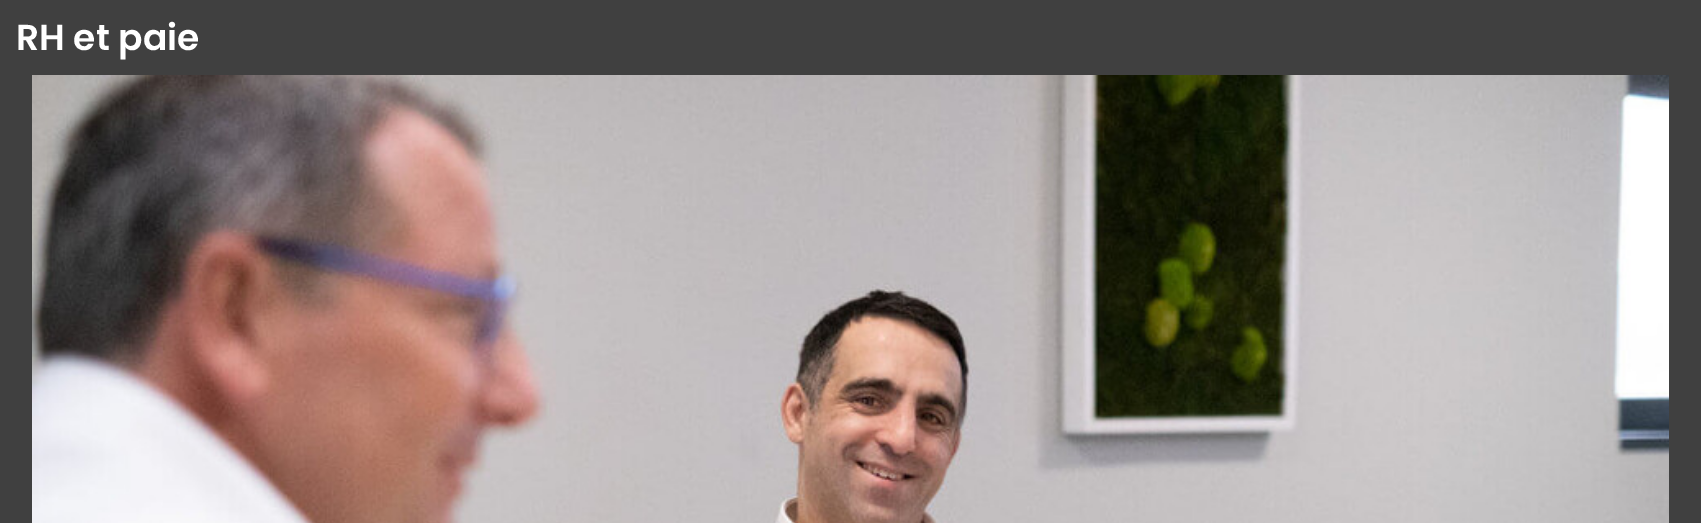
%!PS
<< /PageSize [1701 523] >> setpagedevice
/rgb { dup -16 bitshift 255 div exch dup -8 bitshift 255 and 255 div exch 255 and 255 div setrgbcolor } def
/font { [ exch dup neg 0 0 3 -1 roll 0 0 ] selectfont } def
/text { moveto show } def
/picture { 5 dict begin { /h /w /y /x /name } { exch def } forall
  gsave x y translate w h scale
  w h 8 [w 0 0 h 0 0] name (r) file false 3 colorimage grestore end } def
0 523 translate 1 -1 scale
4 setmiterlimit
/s1 { /Poppins-SemiBold 36 font 16#FFFFFF rgb } def
16#404040 rgb
0 0 1701 523 rectfill
s1
(RH et paie) 16 50 text
(pic1.raw) 32 75 1637 448 picture
showpage
